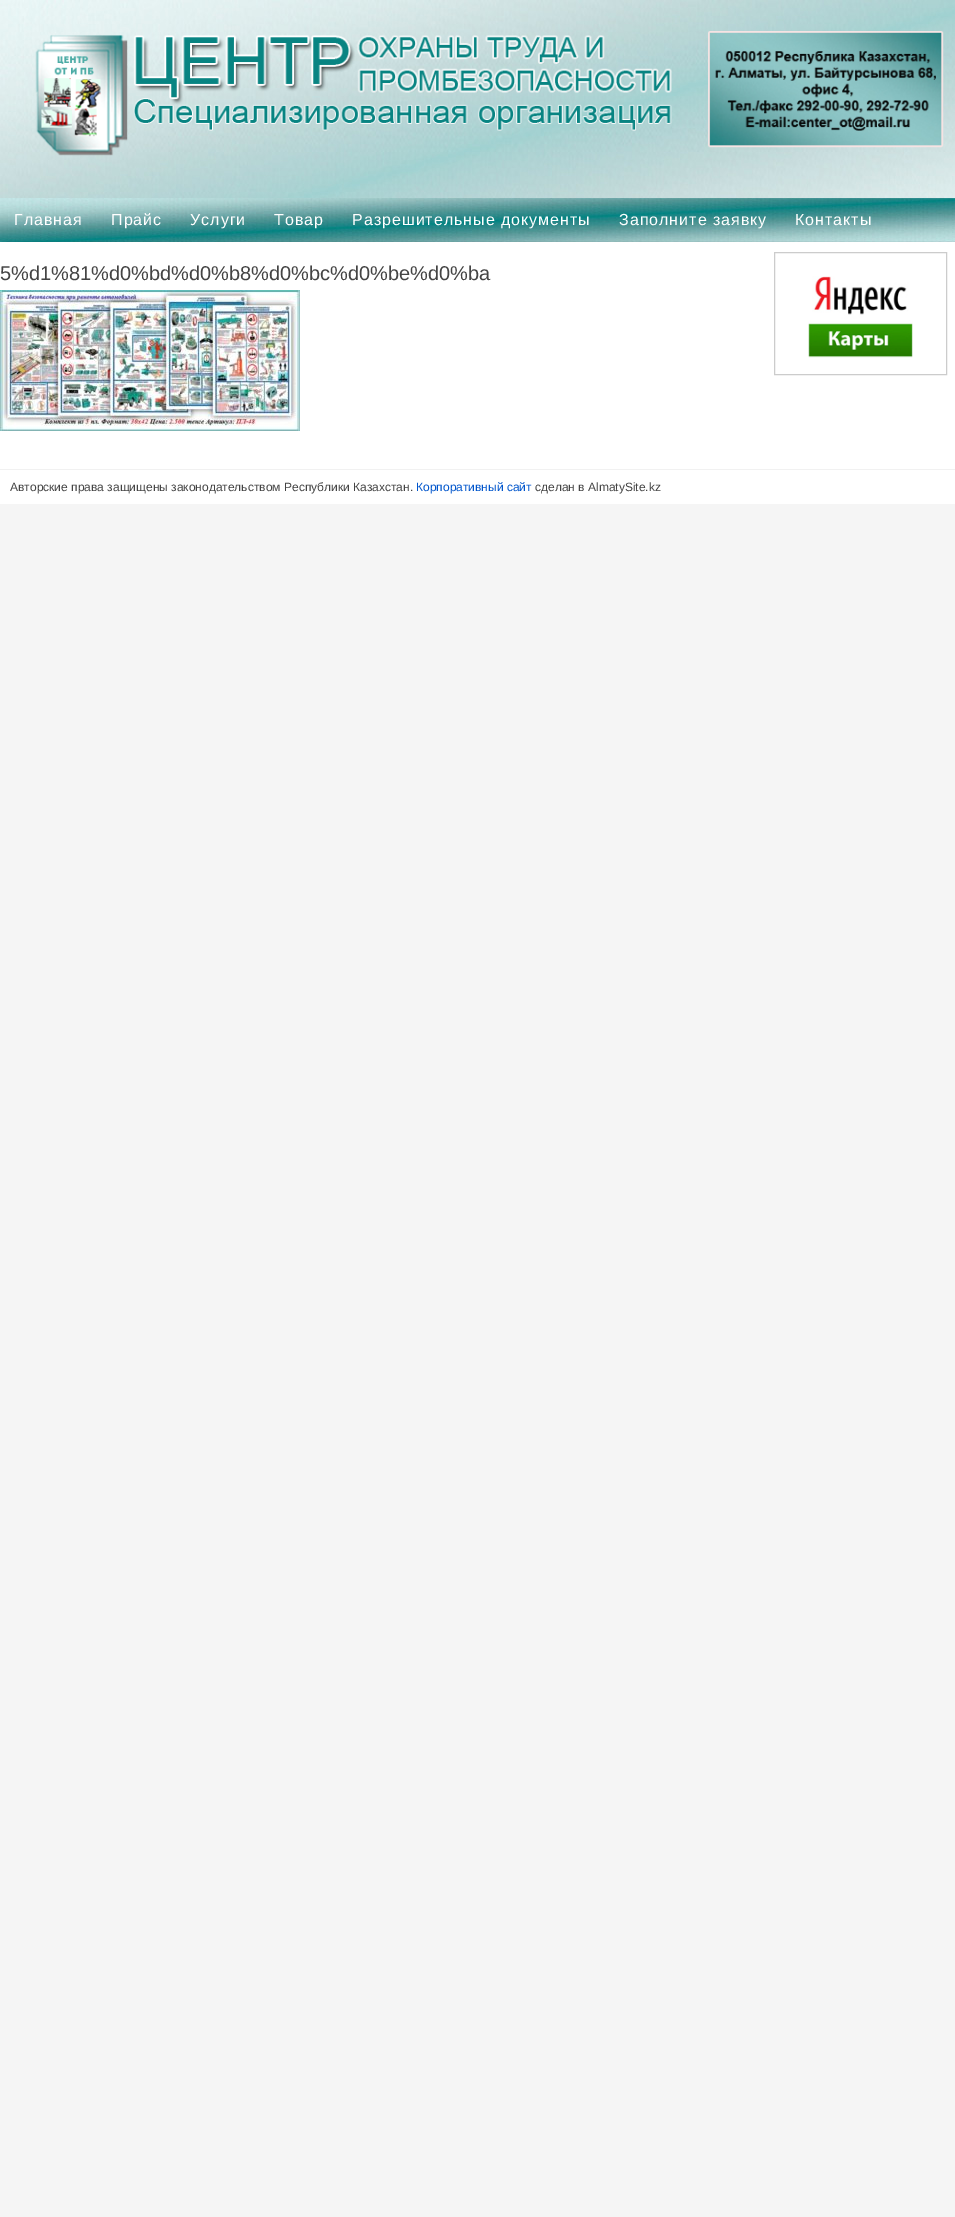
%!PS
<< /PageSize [955 2217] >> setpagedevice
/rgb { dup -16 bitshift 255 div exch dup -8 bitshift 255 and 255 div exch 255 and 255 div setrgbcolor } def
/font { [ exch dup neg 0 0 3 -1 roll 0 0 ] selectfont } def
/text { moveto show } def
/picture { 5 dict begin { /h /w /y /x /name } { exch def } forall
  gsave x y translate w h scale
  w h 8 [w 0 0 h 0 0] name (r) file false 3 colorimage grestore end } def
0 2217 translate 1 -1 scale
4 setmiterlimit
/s1 { /LiberationSans-Regular 20 font 16#444444 rgb } def
/s2 { /LiberationSans-Regular 12 font 16#444444 rgb } def
/s3 { /LiberationSans-Regular 12 font 16#0055CC rgb } def
16#F5F5F5 rgb
0 0 955 2217 rectfill
16#FFFFFF rgb
0 242 955 262 rectfill
(pic1.raw) 0 0 955 198 picture
(pic2.raw) 35 35 637 121 picture
(pic3.raw) 708 31 236 117 picture
(pic4.raw) 0 198 955 44 picture
/LiberationSans-Regular 16 font
14 225 moveto 1 0 (Главная) ashow
111 225 moveto 1 0 (Прайс) ashow
190 225 moveto 1 0 (Услуги) ashow
274 225 moveto 1 0 (Товар) ashow
352 225 moveto 1 0 (Разрешительные документы) ashow
619 225 moveto 1 0 (Заполните заявку) ashow
795 225 moveto 1 0 (Контакты) ashow
s1
(5%d1%81%d0%bd%d0%b8%d0%bc%d0%be%d0%ba) 0 280 text
(pic5.raw) 0 290 300 141 picture
16#CCCCCC rgb
774.5 252.5 172 122 rectstroke
(pic6.raw) 808 276 105 82 picture
16#F1F1F1 rgb
0 469 955 1 rectfill
s2
(Авторские права защищены законодательством Республики Казахстан.) 10 491 text
s3
(Корпоративный сайт) 416 491 text
s2
(сделан в AlmatySite.kz) 535 491 text
showpage
